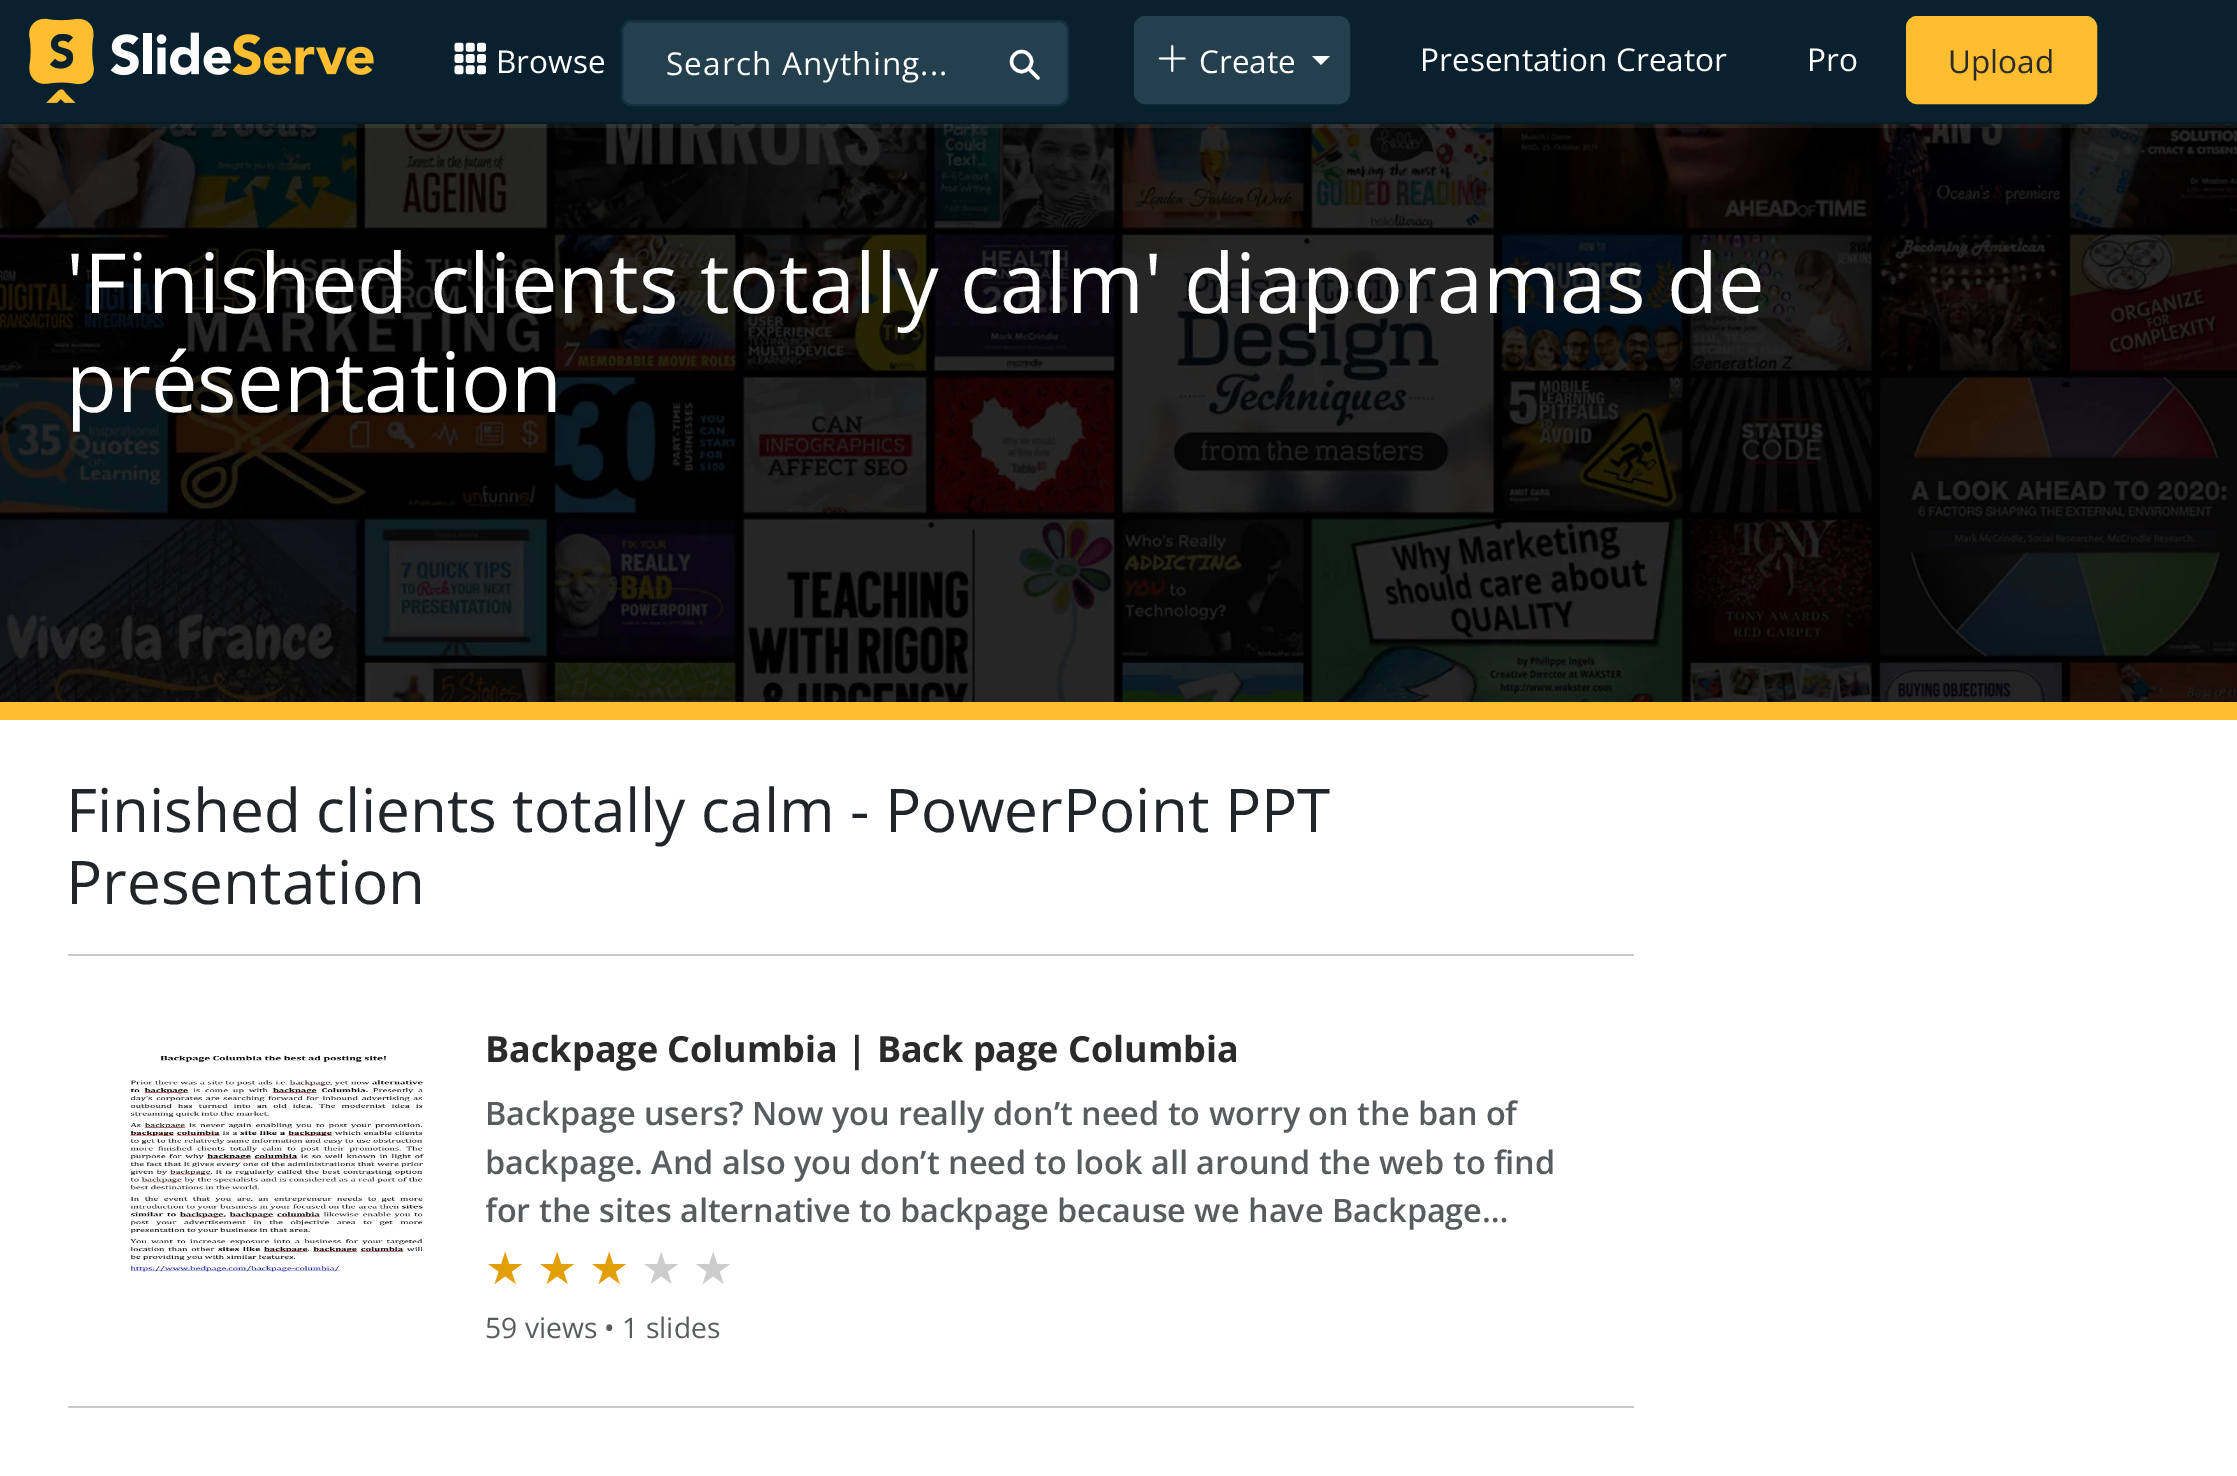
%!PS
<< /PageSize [2237 1476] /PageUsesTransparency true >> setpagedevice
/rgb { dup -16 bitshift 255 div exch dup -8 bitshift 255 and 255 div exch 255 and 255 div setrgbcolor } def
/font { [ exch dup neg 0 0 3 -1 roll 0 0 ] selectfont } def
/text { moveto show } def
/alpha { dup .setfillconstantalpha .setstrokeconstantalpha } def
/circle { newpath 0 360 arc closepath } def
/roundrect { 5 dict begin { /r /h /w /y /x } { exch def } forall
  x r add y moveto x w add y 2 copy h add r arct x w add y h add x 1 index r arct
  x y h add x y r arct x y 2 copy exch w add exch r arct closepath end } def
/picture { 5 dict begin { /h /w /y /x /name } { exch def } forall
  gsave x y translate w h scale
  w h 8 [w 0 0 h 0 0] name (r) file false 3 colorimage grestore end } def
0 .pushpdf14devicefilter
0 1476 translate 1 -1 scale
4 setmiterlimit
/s1 { /OpenSans-Regular 31.5 font 16#FFFFFF rgb } def
/s2 { /OpenSans-Regular 31.5 font 16#2B2A2A rgb } def
/s3 { /OpenSans-Regular 83.1 font 16#FFFFFF rgb } def
/s4 { /OpenSans-Regular 60.25 font 16#212529 rgb } def
/s5 { /OpenSans-Bold 36 font 16#2B2A2A rgb } def
/s6 { /OpenSans-SemiBold 32.4 font 16#595C5F rgb } def
/s7 { /DejaVuSans-Regular 45 font 16#E39F08 rgb } def
/s8 { /DejaVuSans-Regular 45 font 16#CCCCCC rgb } def
/s9 { /OpenSans-Regular 28.25 font 16#595C5F rgb } def
16#FFFFFF rgb
0 0 2237 1476 rectfill
(pic4.raw) 0 124 2237 578 picture
0.07 alpha
0 124 moveto 0 128 lineto 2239 128 lineto 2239 5 lineto 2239 124 lineto closepath fill
1 alpha
16#09212E rgb
0 0 2237 122 rectfill
16#061924 rgb
0 122 2237 2 rectfill
(pic1.raw) 29 18 345 85 picture
(pic2.raw) 454 42 32 33 picture
s1
(Browse) 496 73 text
16#243F4E rgb
1135 17 214 86 10 roundrect gsave fill grestore
2 setlinewidth
stroke
(pic3.raw) 1158 45 28 27 picture
s1
(Create) 1199 73 text
1312 56 moveto 1330 56 lineto 1321 65 lineto closepath fill
(Presentation Creator) 1420 71 text
(Pro) 1807 71 text
16#FFBE2F rgb
1907 17 189 86 10 roundrect gsave fill grestore
stroke
s2
(Upload) 1948 73 text
16#243F4E rgb
621 20 448 86 11 roundrect fill
16#FFFFFF rgb
3.4 setlinewidth
1021.5 61.5 10 circle stroke
1 setlinecap
1 setlinejoin
1038 78 moveto 1029 69 lineto stroke
16#152E40 rgb
2 setlinewidth
0 setlinecap
0 setlinejoin
622 21 446 84 10 roundrect stroke
16#FFFFFF rgb
666 75 moveto 1.1 0 (Search Anything...) ashow
16#FFBE30 rgb
0 702 2237 18 rectfill
s3
('Finished clients totally calm' diaporamas de) 66 313 text
(présentation) 66 412 text
s4
(Finished clients totally calm - PowerPoint PPT) 66 832 text
(Presentation) 66 904 text
16#C8C9CA rgb
68 954 1566 2 rectfill
(pic5.raw) 129 1055 296 218 picture
s5
(Backpage Columbia | Back page Columbia) 485 1062 text
s6
(Backpage users? Now you really don’t need to worry on the ban of) 485 1125 text
(backpage. And also you don’t need to look all around the web to find) 485 1174 text
gsave
486 1089 1112 146 rectclip
(for the sites alternative to backpage because we have Backpage…) 485 1222 text
grestore
s7
(★) 485 1284 text
(★) 537 1284 text
(★) 589 1284 text
s8
(★) 641 1284 text
(★) 693 1284 text
s9
(59 views • 1 slides) 485 1338 text
16#C8C9CA rgb
68 1406 1566 2 rectfill
.poppdf14devicefilter showpage
